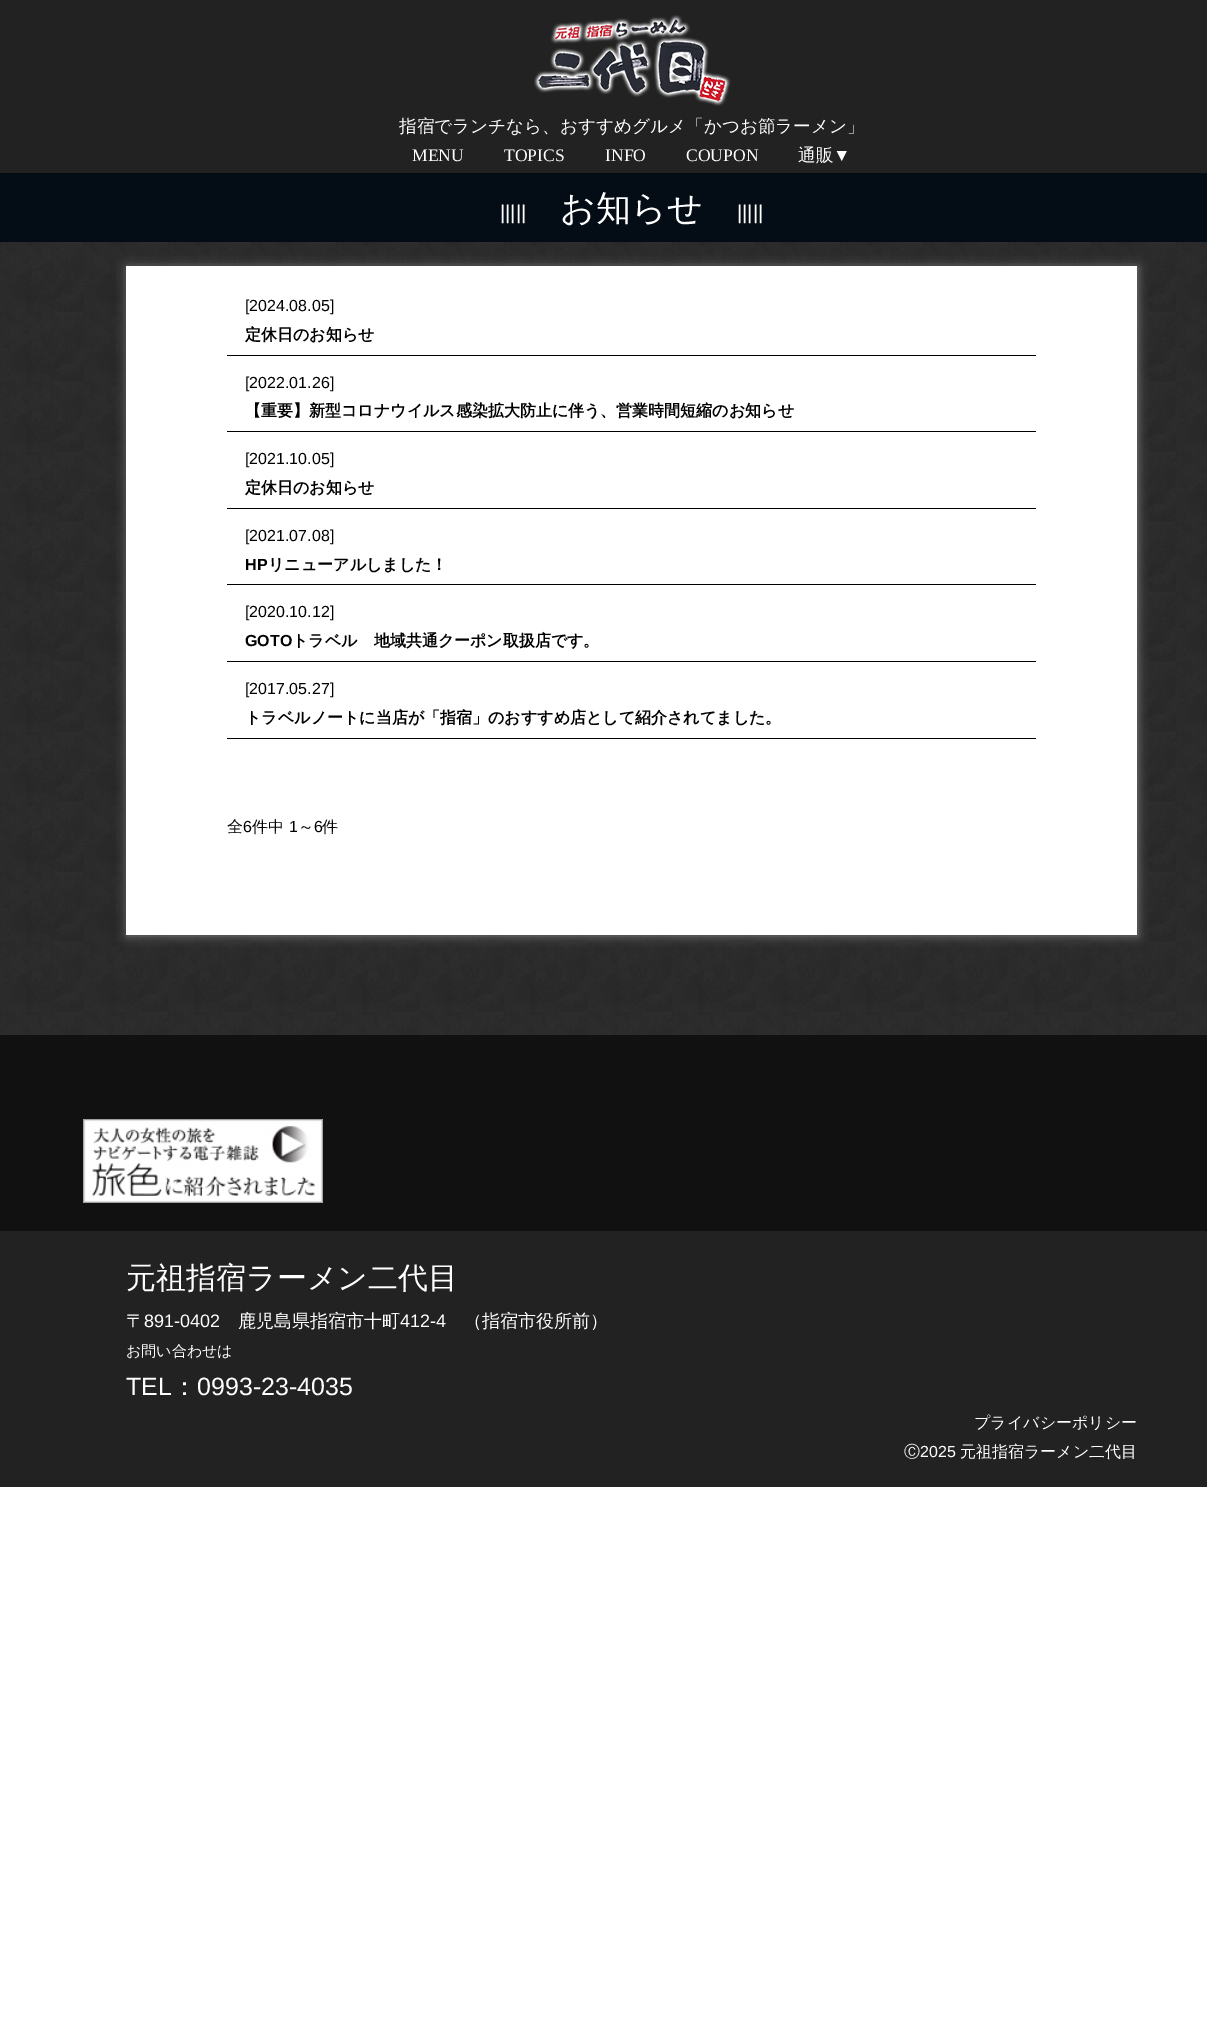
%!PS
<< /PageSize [1207 2043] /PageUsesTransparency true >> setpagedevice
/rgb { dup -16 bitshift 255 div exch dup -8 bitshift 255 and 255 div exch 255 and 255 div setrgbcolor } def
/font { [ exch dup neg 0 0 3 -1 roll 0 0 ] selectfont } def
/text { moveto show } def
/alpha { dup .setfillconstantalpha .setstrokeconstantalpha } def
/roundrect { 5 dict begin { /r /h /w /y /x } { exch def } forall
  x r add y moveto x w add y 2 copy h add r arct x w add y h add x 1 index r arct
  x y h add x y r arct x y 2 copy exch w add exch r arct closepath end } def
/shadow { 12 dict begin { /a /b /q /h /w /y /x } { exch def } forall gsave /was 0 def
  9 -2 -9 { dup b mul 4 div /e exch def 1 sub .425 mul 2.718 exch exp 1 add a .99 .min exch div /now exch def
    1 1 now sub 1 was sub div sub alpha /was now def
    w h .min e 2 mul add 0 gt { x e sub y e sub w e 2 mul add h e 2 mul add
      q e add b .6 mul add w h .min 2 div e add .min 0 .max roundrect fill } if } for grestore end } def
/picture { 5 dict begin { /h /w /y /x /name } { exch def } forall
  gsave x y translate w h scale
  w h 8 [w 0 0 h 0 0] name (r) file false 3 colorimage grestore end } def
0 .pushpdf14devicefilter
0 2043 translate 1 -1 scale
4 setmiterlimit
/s1 { /WenQuanYiZenHei-Medium 17.6 font 16#FFFFFF rgb } def
/s2 { /LiberationSerif-Regular 17.6 font 16#FFFFFF rgb } def
/s3 { /LiberationSans-Regular 20 font 16#FFFFFF rgb } def
/s4 { /WenQuanYiZenHei-Medium 35 font 16#FFFFFF rgb } def
/s5 { /LiberationSans-Regular 16 font 16#000000 rgb } def
/s6 { /WenQuanYiZenHei-Bold 16 font 16#000000 rgb } def
/s7 { /LiberationSans-Bold 16 font 16#000000 rgb } def
/s8 { /WenQuanYiZenHei-Medium 16 font 16#000000 rgb } def
/s9 { /WenQuanYiZenHei-Medium 30 font 16#FFFFFF rgb } def
/s10 { /WenQuanYiZenHei-Medium 18 font 16#FFFFFF rgb } def
/s11 { /LiberationSans-Regular 18 font 16#FFFFFF rgb } def
/s12 { /WenQuanYiZenHei-Medium 15 font 16#FFFFFF rgb } def
/s13 { /LiberationSans-Regular 25 font 16#FFFFFF rgb } def
/s14 { /WenQuanYiZenHei-Medium 25 font 16#FFFFFF rgb } def
/s15 { /WenQuanYiZenHei-Medium 16 font 16#FFFFFF rgb } def
/s16 { /LiberationSans-Regular 16 font 16#FFFFFF rgb } def
16#FFFFFF rgb
0 0 1207 2043 rectfill
16#222222 rgb
0 0 1207 173 rectfill
(pic1.raw) 534 15 197 91 picture
s1
(指宿でランチなら、おすすめグルメ「かつお節ラーメン」) 399 132 text
s2
(MENU) 412 161 text
(TOPICS) 504 161 text
(INFO) 605 161 text
(COUPON) 686 161 text
s1
(通販) 798 161 text
s2
(▼) 833 161 text
16#040C15 rgb
0 173 1207 69 rectfill
s3
(|||||) 500 219 text
s4
(お知らせ) 560 220 text
s3
(|||||) 737 219 text
(pic2.raw) 0 242 1207 793 picture
16#7D7D7D rgb
127 267 1011 669 0 5 1 shadow
16#FFFFFF rgb
126 266 1011 669 rectfill
16#000000 rgb
227 355 809 1 rectfill
s5
([2024.08.05]) 245 311 text
s6
(定休日のお知らせ) 245 340 text
227 431 809 1 rectfill
s5
([2022.01.26]) 245 388 text
s6
(【重要】新型コロナウイルス感染拡大防止に伴う、営業時間短縮のお知らせ) 245 416 text
227 508 809 1 rectfill
s5
([2021.10.05]) 245 464 text
s6
(定休日のお知らせ) 245 493 text
227 584 809 1 rectfill
s5
([2021.07.08]) 245 541 text
s7
(HP) 245 570 text
s6
(リニューアルしました！) 268 570 text
227 661 809 1 rectfill
s5
([2020.10.12]) 245 617 text
s7
(GOTO) 245 646 text
s6
(トラベル　地域共通クーポン取扱店です。) 292 646 text
227 738 809 1 rectfill
s5
([2017.05.27]) 245 694 text
s6
(トラベルノートに当店が「指宿」のおすすめ店として紹介されてました。) 245 723 text
s8
(全) 227 832 text
s5
(6) 243 832 text
s8
(件中) 252 832 text
s5
(1) 289 832 text
s8
(～) 298 832 text
s5
(6) 314 832 text
s8
(件) 322 832 text
16#111111 rgb
0 1035 1207 196 rectfill
(pic3.raw) 83 1119 240 84 picture
16#222222 rgb
0 1231 1207 256 rectfill
s9
(元祖指宿ラーメン二代目) 126 1288 text
s10
(〒) 126 1327 text
s11
(891-0402) 144 1327 text
s10
(鹿児島県指宿市十町) 238 1327 text
s11
(412-4) 400 1327 text
s10
(（指宿市役所前）) 464 1327 text
s12
(お問い合わせは) 126 1356 text
s13
(TEL) 126 1395 text
s14
(：) 172 1395 text
s13
(0993-23-4035) 197 1395 text
s15
(プライバシーポリシー) 974 1428 text
(Ⓒ) 904 1457 text
s16
(2025) 920 1457 text
s15
(元祖指宿ラーメン二代目) 960 1457 text
.poppdf14devicefilter showpage
